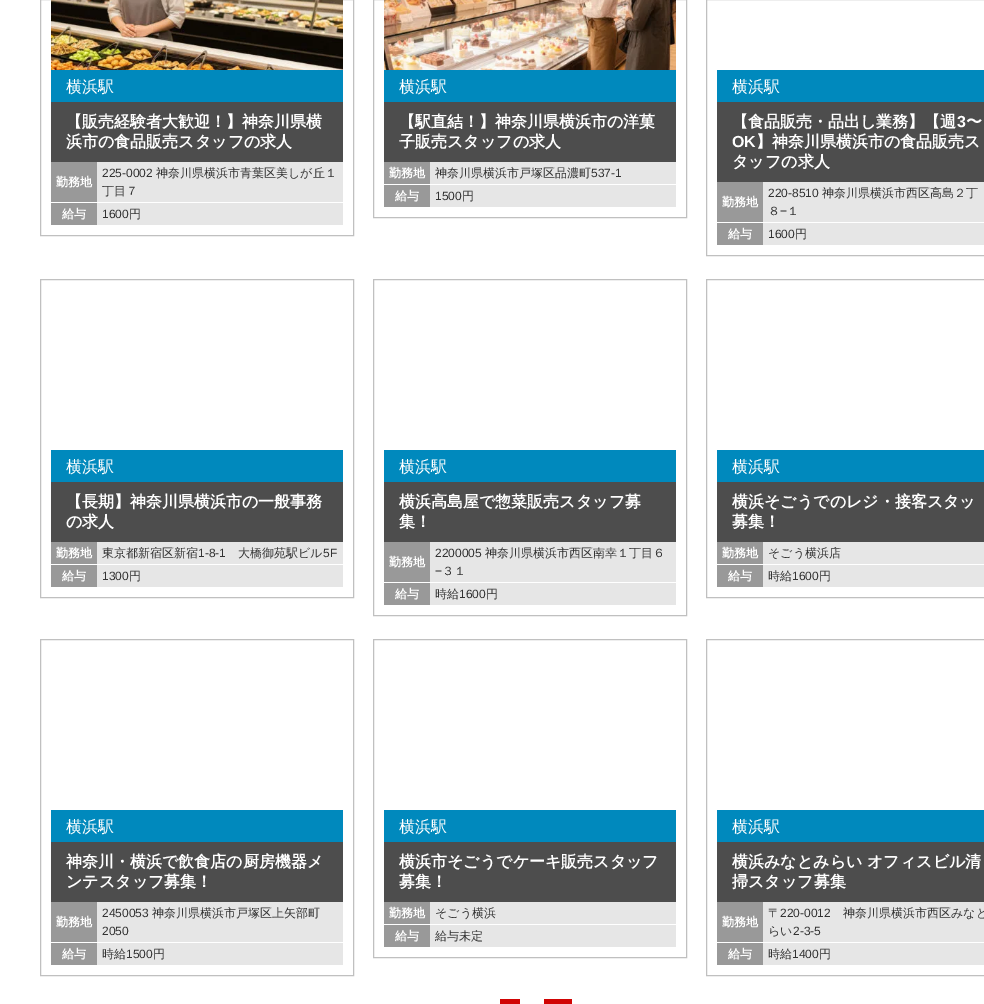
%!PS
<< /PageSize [984 1004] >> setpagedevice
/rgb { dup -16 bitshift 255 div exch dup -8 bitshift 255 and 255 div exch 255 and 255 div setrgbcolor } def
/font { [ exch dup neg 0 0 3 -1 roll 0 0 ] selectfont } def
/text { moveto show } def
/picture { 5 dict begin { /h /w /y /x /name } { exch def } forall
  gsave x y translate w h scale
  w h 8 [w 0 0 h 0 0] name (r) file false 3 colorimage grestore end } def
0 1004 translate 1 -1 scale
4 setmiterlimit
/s1 { /WenQuanYiZenHei-Medium 16 font 16#FFFFFF rgb } def
/s2 { /WenQuanYiZenHei-Bold 16 font 16#FFFFFF rgb } def
/s3 { /WenQuanYiZenHei-Bold 12 font 16#FFFFFF rgb } def
/s4 { /LiberationSans-Regular 12 font 16#333333 rgb } def
/s5 { /WenQuanYiZenHei-Medium 12 font 16#333333 rgb } def
/s6 { /LiberationSans-Bold 16 font 16#FFFFFF rgb } def
16#FFFFFF rgb
0 0 984 1004 rectfill
16#C0C0C0 rgb
40.5 -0.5 313 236 rectstroke
(pic1.raw) 51 0 292 70 picture
16#0089BD rgb
51 70 292 32 rectfill
s1
(横浜駅) 66 92 text
16#4D4D4D rgb
51 102 292 60 rectfill
s2
(【販売経験者大歓迎！】神奈川県横) 66 127 text
(浜市の食品販売スタッフの求人) 66 147 text
16#999999 rgb
51 162 46 40 rectfill
s3
(勤務地) 56 186 text
16#E6E6E6 rgb
97 162 246 40 rectfill
s4
(225-0002) 102 177 text
s5
(神奈川県横浜市青葉区美しが丘１) 156 177 text
(丁目７) 102 195 text
16#999999 rgb
51 203 46 22 rectfill
s3
(給与) 62 218 text
16#E6E6E6 rgb
97 203 246 22 rectfill
s4
(1600) 102 218 text
s5
(円) 129 218 text
16#C0C0C0 rgb
373.5 -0.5 313 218 rectstroke
(pic2.raw) 384 0 292 70 picture
16#0089BD rgb
384 70 292 32 rectfill
s1
(横浜駅) 399 92 text
16#4D4D4D rgb
384 102 292 60 rectfill
s2
(【駅直結！】神奈川県横浜市の洋菓) 399 127 text
(子販売スタッフの求人) 399 147 text
16#999999 rgb
384 162 46 22 rectfill
s3
(勤務地) 389 177 text
16#E6E6E6 rgb
430 162 246 22 rectfill
s5
(神奈川県横浜市戸塚区品濃町) 435 177 text
s4
(537-1) 591 177 text
16#999999 rgb
384 185 46 22 rectfill
s3
(給与) 395 200 text
16#E6E6E6 rgb
430 185 246 22 rectfill
s4
(1500) 435 200 text
s5
(円) 462 200 text
16#C0C0C0 rgb
706.5 -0.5 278 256 rectstroke
16#0089BD rgb
717 70 267 32 rectfill
s1
(横浜駅) 732 92 text
16#4D4D4D rgb
717 102 267 80 rectfill
s2
(【食品販売・品出し業務】【週) 732 127 text
s6
(3) 957 127 text
s2
(〜) 966 127 text
s6
(OK) 732 147 text
s2
(】神奈川県横浜市の食品販売ス) 756 147 text
(タッフの求人) 732 167 text
16#999999 rgb
717 182 46 40 rectfill
s3
(勤務地) 722 206 text
16#E6E6E6 rgb
763 182 221 40 rectfill
s4
(220-8510) 768 197 text
s5
(神奈川県横浜市西区高島２丁) 822 197 text
(８) 768 215 text
s4
(−) 780 215 text
s5
(１) 787 215 text
16#999999 rgb
717 223 46 22 rectfill
s3
(給与) 728 238 text
16#E6E6E6 rgb
763 223 221 22 rectfill
s4
(1600) 768 238 text
s5
(円) 795 238 text
16#C0C0C0 rgb
40.5 279.5 313 318 rectstroke
16#0089BD rgb
51 450 292 32 rectfill
s1
(横浜駅) 66 472 text
16#4D4D4D rgb
51 482 292 60 rectfill
s2
(【長期】神奈川県横浜市の一般事務) 66 507 text
(の求人) 66 527 text
16#999999 rgb
51 542 46 22 rectfill
s3
(勤務地) 56 557 text
16#E6E6E6 rgb
97 542 246 22 rectfill
s5
(東京都新宿区新宿) 102 557 text
s4
(1-8-1) 198 557 text
s5
(大橋御苑駅ビル) 238 557 text
s4
(5F) 323 557 text
16#999999 rgb
51 565 46 22 rectfill
s3
(給与) 62 580 text
16#E6E6E6 rgb
97 565 246 22 rectfill
s4
(1300) 102 580 text
s5
(円) 129 580 text
16#C0C0C0 rgb
373.5 279.5 313 336 rectstroke
16#0089BD rgb
384 450 292 32 rectfill
s1
(横浜駅) 399 472 text
16#4D4D4D rgb
384 482 292 60 rectfill
s2
(横浜高島屋で惣菜販売スタッフ募) 399 507 text
(集！) 399 527 text
16#999999 rgb
384 542 46 40 rectfill
s3
(勤務地) 389 566 text
16#E6E6E6 rgb
430 542 246 40 rectfill
s4
(2200005) 435 557 text
s5
(神奈川県横浜市西区南幸１丁目６) 485 557 text
s4
(−) 435 575 text
s5
(３１) 442 575 text
16#999999 rgb
384 583 46 22 rectfill
s3
(給与) 395 598 text
16#E6E6E6 rgb
430 583 246 22 rectfill
s5
(時給) 435 598 text
s4
(1600) 459 598 text
s5
(円) 486 598 text
16#C0C0C0 rgb
706.5 279.5 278 318 rectstroke
16#0089BD rgb
717 450 267 32 rectfill
s1
(横浜駅) 732 472 text
16#4D4D4D rgb
717 482 267 60 rectfill
s2
(横浜そごうでのレジ・接客スタッ) 732 507 text
(募集！) 732 527 text
16#999999 rgb
717 542 46 22 rectfill
s3
(勤務地) 722 557 text
16#E6E6E6 rgb
763 542 221 22 rectfill
s5
(そごう横浜店) 768 557 text
16#999999 rgb
717 565 46 22 rectfill
s3
(給与) 728 580 text
16#E6E6E6 rgb
763 565 221 22 rectfill
s5
(時給) 768 580 text
s4
(1600) 792 580 text
s5
(円) 819 580 text
16#C0C0C0 rgb
40.5 639.5 313 336 rectstroke
16#0089BD rgb
51 810 292 32 rectfill
s1
(横浜駅) 66 832 text
16#4D4D4D rgb
51 842 292 60 rectfill
s2
(神奈川・横浜で飲食店の厨房機器メ) 66 867 text
(ンテスタッフ募集！) 66 887 text
16#999999 rgb
51 902 46 40 rectfill
s3
(勤務地) 56 926 text
16#E6E6E6 rgb
97 902 246 40 rectfill
s4
(2450053) 102 917 text
s5
(神奈川県横浜市戸塚区上矢部町) 152 917 text
s4
(2050) 102 935 text
16#999999 rgb
51 943 46 22 rectfill
s3
(給与) 62 958 text
16#E6E6E6 rgb
97 943 246 22 rectfill
s5
(時給) 102 958 text
s4
(1500) 126 958 text
s5
(円) 153 958 text
16#C0C0C0 rgb
373.5 639.5 313 318 rectstroke
16#0089BD rgb
384 810 292 32 rectfill
s1
(横浜駅) 399 832 text
16#4D4D4D rgb
384 842 292 60 rectfill
s2
(横浜市そごうでケーキ販売スタッフ) 399 867 text
(募集！) 399 887 text
16#999999 rgb
384 902 46 22 rectfill
s3
(勤務地) 389 917 text
16#E6E6E6 rgb
430 902 246 22 rectfill
s5
(そごう横浜) 435 917 text
16#999999 rgb
384 925 46 22 rectfill
s3
(給与) 395 940 text
16#E6E6E6 rgb
430 925 246 22 rectfill
s5
(給与未定) 435 940 text
16#C0C0C0 rgb
706.5 639.5 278 336 rectstroke
16#0089BD rgb
717 810 267 32 rectfill
s1
(横浜駅) 732 832 text
16#4D4D4D rgb
717 842 267 60 rectfill
s2
(横浜みなとみらい オフィスビル清) 732 867 text
(掃スタッフ募集) 732 887 text
16#999999 rgb
717 902 46 40 rectfill
s3
(勤務地) 722 926 text
16#E6E6E6 rgb
763 902 221 40 rectfill
s5
(〒) 768 917 text
s4
(220-0012) 780 917 text
s5
(神奈川県横浜市西区みなと) 843 917 text
(らい) 768 935 text
s4
(2-3-5) 793 935 text
16#999999 rgb
717 943 46 22 rectfill
s3
(給与) 728 958 text
16#E6E6E6 rgb
763 943 221 22 rectfill
s5
(時給) 768 958 text
s4
(1400) 792 958 text
s5
(円) 819 958 text
16#D10504 rgb
500 999 20 5 rectfill
544 999 28 5 rectfill
showpage
